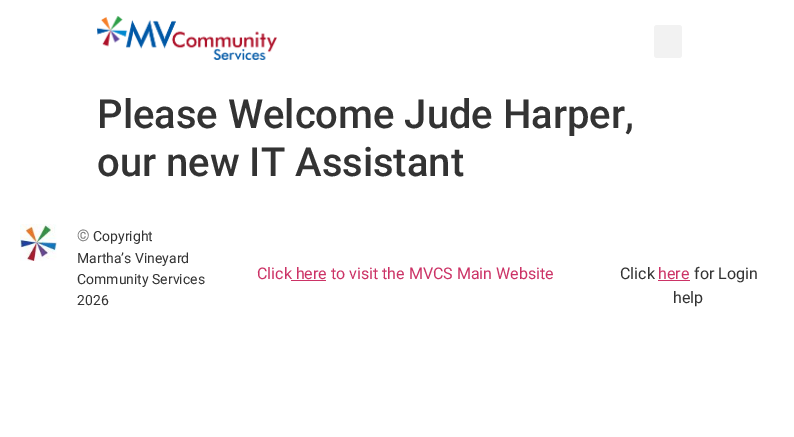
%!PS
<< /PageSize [794 437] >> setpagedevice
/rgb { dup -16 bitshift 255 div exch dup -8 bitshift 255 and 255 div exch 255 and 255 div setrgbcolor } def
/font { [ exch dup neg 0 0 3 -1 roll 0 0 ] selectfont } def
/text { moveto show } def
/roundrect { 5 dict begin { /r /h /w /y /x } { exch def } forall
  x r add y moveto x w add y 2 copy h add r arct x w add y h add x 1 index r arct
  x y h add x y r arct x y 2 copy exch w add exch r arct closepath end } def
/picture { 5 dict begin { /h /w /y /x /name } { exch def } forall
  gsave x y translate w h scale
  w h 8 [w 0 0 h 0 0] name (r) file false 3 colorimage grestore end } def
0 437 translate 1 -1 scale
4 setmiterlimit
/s1 { /Roboto-Medium 40 font 16#333333 rgb } def
/s2 { /Roboto-Regular 16 font 16#7A7A7A rgb } def
/s3 { /Roboto-Regular 14 font 16#333333 rgb } def
/s4 { /Roboto-Regular 16 font 16#CC3366 rgb } def
/s5 { /Roboto-Regular 16 font 16#333333 rgb } def
16#FFFFFF rgb
0 0 794 437 rectfill
(pic1.raw) 97 16 180 44 picture
16#F2F2F2 rgb
654 25 28 33 3 roundrect fill
s1
(Please Welcome Jude Harper,) 97 128 text
(our new IT Assistant) 97 176 text
(pic2.raw) 20 224 37 37 picture
s2
(©) 77 241 text
s3
(Copyright) 93 241 text
(Martha’s Vineyard) 77 263 text
(Community Services) 77 284 text
(2026) 77 305 text
s4
(Click here to visit the MVCS Main Website) 257 279 text
291 280 35 1 rectfill
s5
(Click) 620 279 text
s4
(here) 658 279 text
658 280 32 1 rectfill
s5
(for Login) 694 279 text
(help) 673 303 text
showpage
